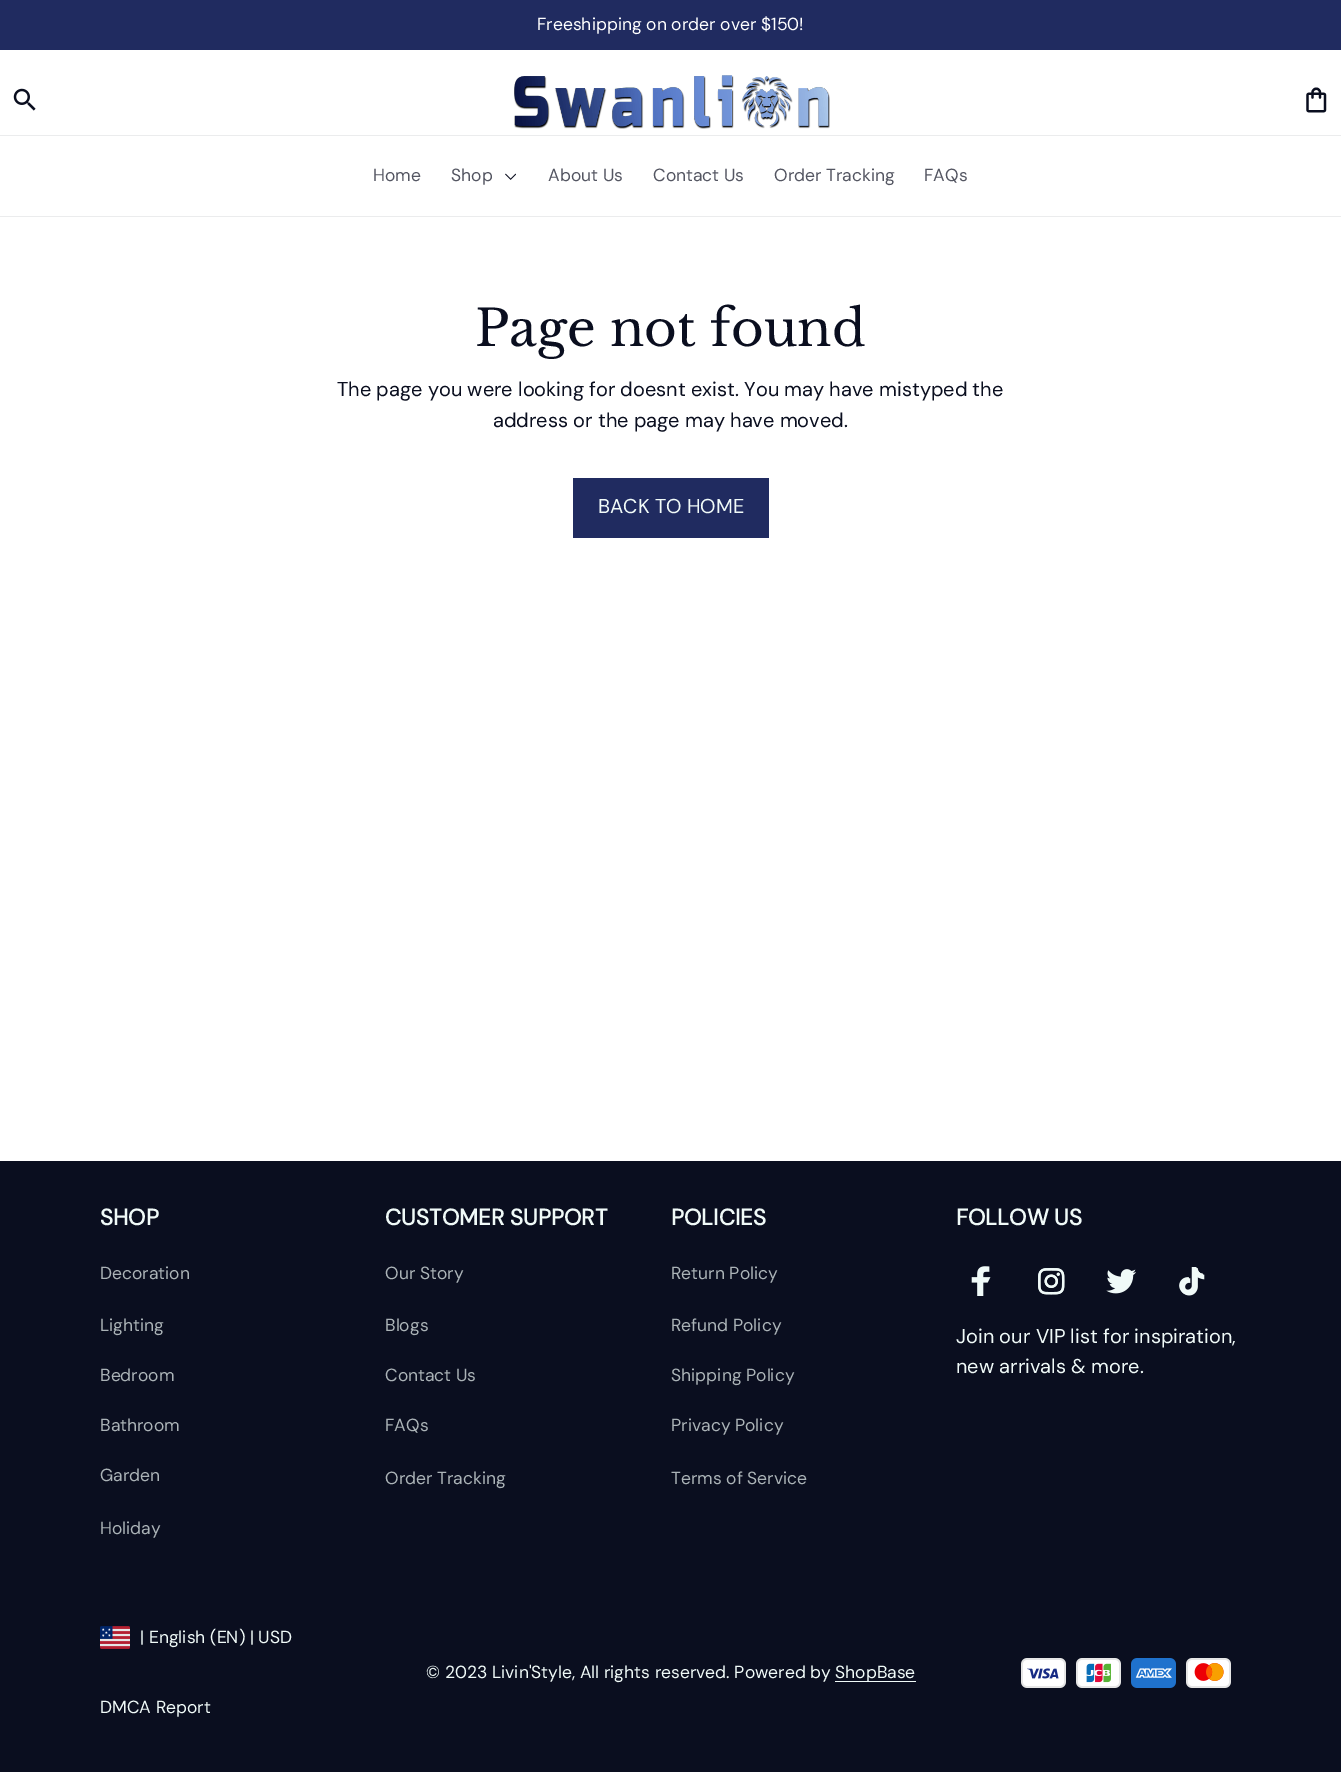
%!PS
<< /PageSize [1341 1772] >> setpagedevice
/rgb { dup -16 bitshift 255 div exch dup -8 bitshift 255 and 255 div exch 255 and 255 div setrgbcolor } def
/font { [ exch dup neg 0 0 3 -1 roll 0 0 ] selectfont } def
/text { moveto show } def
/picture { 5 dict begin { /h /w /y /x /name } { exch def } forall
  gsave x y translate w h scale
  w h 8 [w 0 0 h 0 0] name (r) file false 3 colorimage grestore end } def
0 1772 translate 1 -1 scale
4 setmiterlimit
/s1 { /DMSans-Regular 17.5 font 16#FFFFFF rgb } def
/s2 { /DMSans-Regular 17.5 font 16#545662 rgb } def
/s3 { /LibreBaskerville-Regular 50 font 16#0A0E1F rgb } def
/s4 { /DMSans-Regular 20 font 16#0A0E1F rgb } def
/s5 { /DMSans-Regular 20 font 16#F0FAF8 rgb } def
/s6 { /DMSans-Bold 22.5 font 16#F0FAF8 rgb } def
/s7 { /DMSans-Regular 17.5 font 16#ABB3B7 rgb } def
/s8 { /DMSans-Regular 17.5 font 16#F0FAF8 rgb } def
16#FFFFFF rgb
0 0 1341 1772 rectfill
16#202B60 rgb
0 0 1341 50 rectfill
s1
(Freeshipping on order over $150!) 537 30 text
16#EBECED rgb
0 216 1341 1 rectfill
0 135 1341 1 rectfill
(pic1.raw) 13 88 23 23 picture
(pic2.raw) 514 75 316 54 picture
(pic3.raw) 1306 87 21 26 picture
s2
(Home) 373 181 text
(Shop) 451 181 text
(pic4.raw) 505 173 11 7 picture
(About Us) 548 181 text
(Contact Us) 653 181 text
(Order Tracking) 774 181 text
(FAQs) 924 181 text
s3
(Page not found) 475 346 text
s4
(The page you were looking for doesnt exist. You may have mistyped the) 337 396 text
(address or the page may have moved.) 493 427 text
16#202B60 rgb
573 478 196 60 rectfill
s5
(BACK TO HOME) 598 513 text
16#0A0E1F rgb
0 1161 1341 611 rectfill
s6
(SHOP) 100 1225 text
s7
(Decoration) 100 1279 text
(Lighting) 100 1331 text
(Bedroom) 100 1381 text
(Bathroom) 100 1431 text
(Garden) 100 1481 text
(Holiday) 100 1534 text
s6
(CUSTOMER SUPPORT) 385 1225 text
s7
(Our Story) 385 1279 text
(Blogs) 385 1331 text
(Contact Us) 385 1381 text
(FAQs) 385 1431 text
(Order Tracking) 385 1484 text
s6
(POLICIES) 671 1225 text
s7
(Return Policy) 671 1279 text
(Refund Policy) 671 1331 text
(Shipping Policy) 671 1381 text
(Privacy Policy) 671 1431 text
(Terms of Service) 671 1484 text
s6
(FOLLOW US) 956 1225 text
(pic5.raw) 971 1266 20 30 picture
(pic6.raw) 1038 1268 27 27 picture
(pic7.raw) 1106 1269 30 25 picture
(pic8.raw) 1179 1267 26 29 picture
s5
(Join our VIP list for inspiration,) 956 1343 text
(new arrivals & more.) 956 1373 text
(pic9.raw) 100 1626 30 23 picture
s8
(| English \(EN\) | USD) 140 1643 text
(DMCA Report) 100 1713 text
(© 2023 Livin'Style, All rights reserved. Powered by) 426 1678 text
835 1681 81 1 rectfill
(ShopBase) 835 1678 text
(pic10.raw) 1021 1658 45 30 picture
(pic11.raw) 1076 1658 45 30 picture
(pic12.raw) 1131 1658 45 30 picture
(pic13.raw) 1186 1658 45 30 picture
showpage
